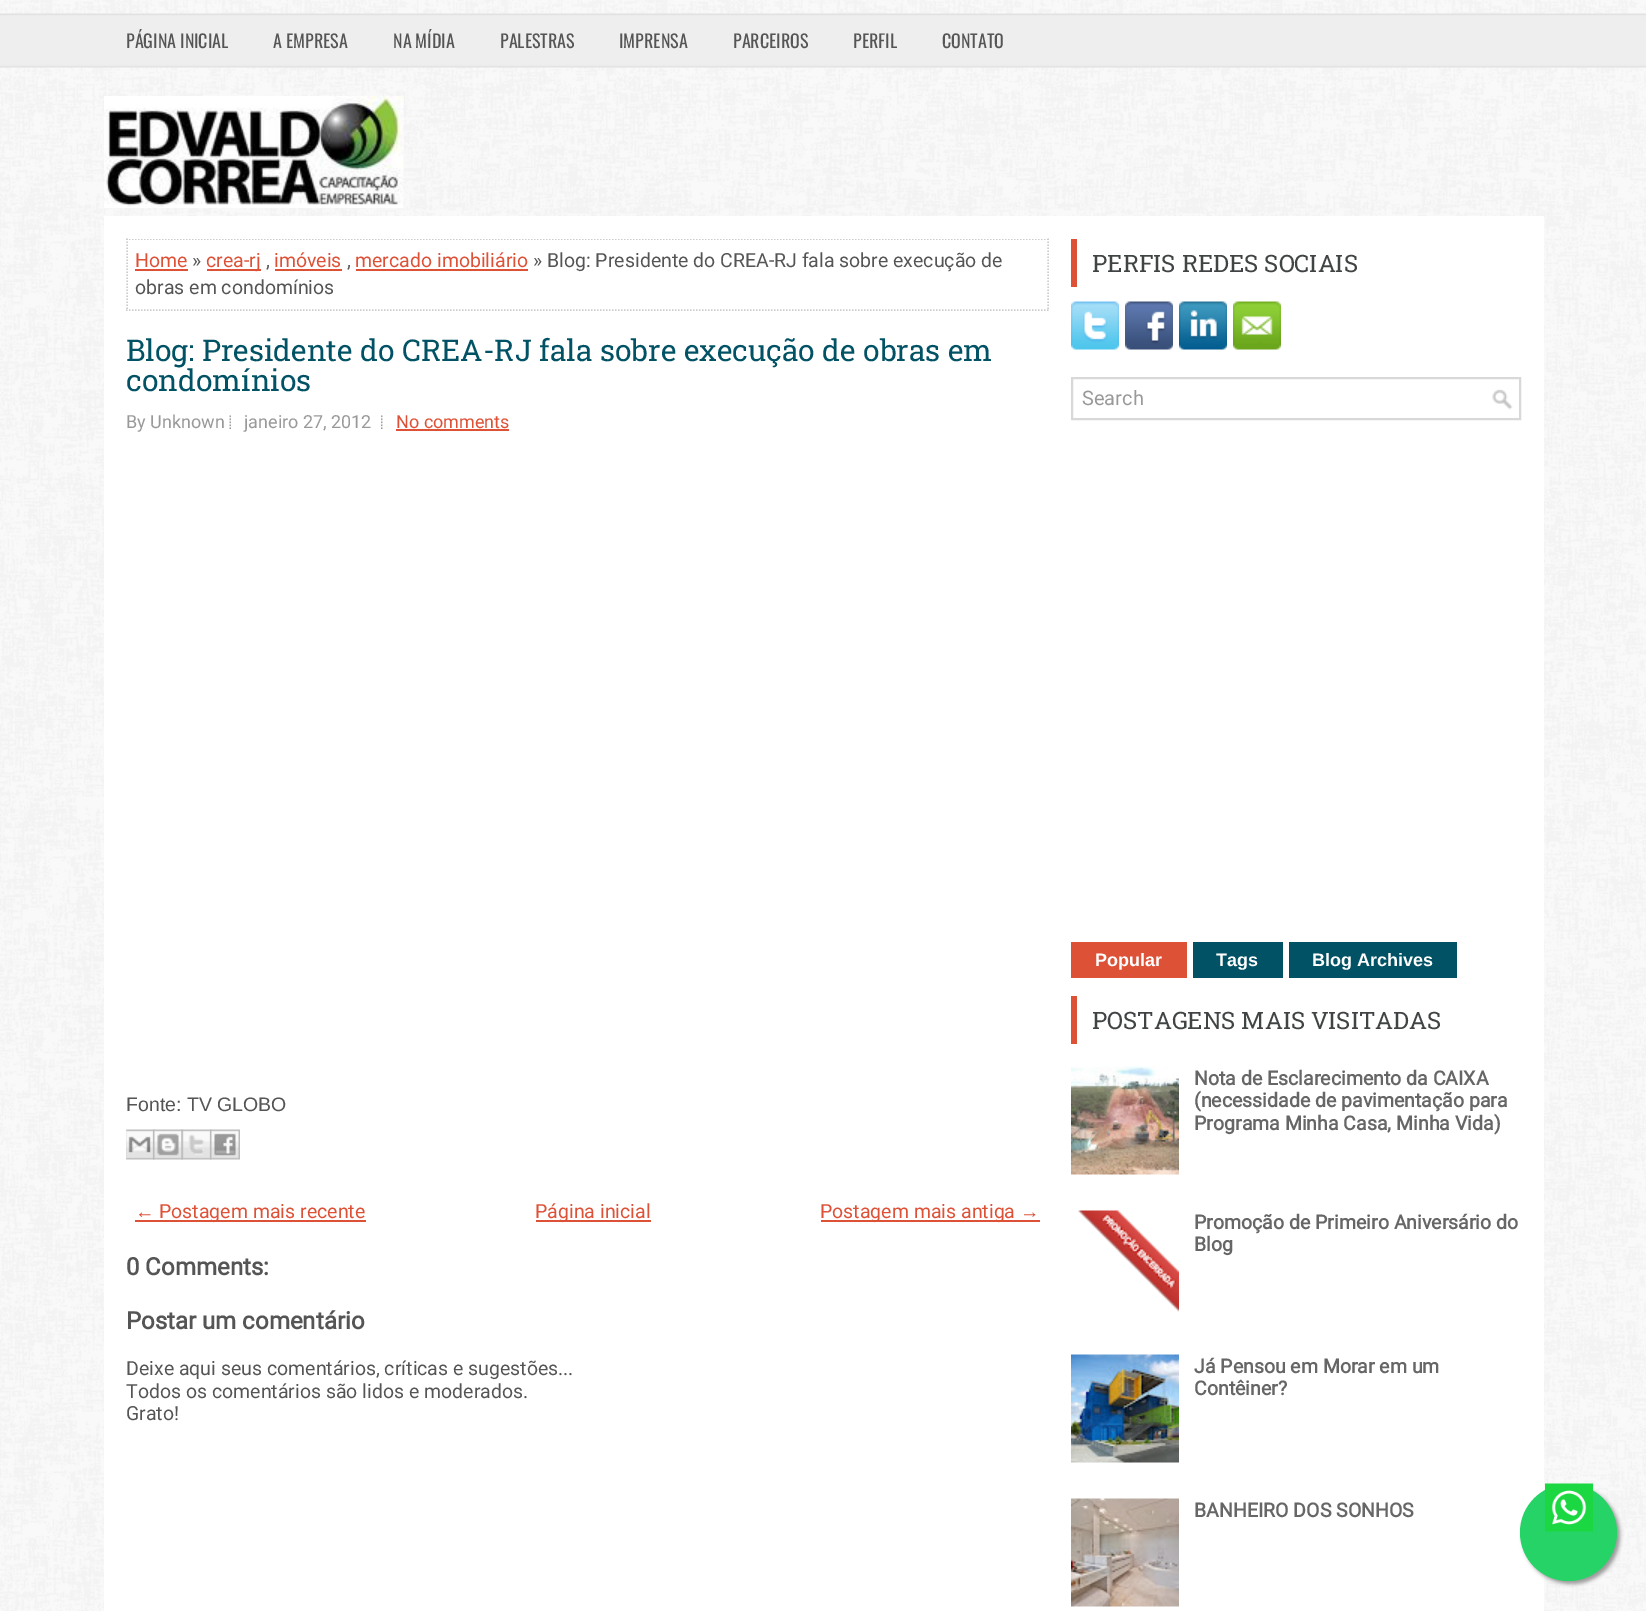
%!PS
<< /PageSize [1646 1611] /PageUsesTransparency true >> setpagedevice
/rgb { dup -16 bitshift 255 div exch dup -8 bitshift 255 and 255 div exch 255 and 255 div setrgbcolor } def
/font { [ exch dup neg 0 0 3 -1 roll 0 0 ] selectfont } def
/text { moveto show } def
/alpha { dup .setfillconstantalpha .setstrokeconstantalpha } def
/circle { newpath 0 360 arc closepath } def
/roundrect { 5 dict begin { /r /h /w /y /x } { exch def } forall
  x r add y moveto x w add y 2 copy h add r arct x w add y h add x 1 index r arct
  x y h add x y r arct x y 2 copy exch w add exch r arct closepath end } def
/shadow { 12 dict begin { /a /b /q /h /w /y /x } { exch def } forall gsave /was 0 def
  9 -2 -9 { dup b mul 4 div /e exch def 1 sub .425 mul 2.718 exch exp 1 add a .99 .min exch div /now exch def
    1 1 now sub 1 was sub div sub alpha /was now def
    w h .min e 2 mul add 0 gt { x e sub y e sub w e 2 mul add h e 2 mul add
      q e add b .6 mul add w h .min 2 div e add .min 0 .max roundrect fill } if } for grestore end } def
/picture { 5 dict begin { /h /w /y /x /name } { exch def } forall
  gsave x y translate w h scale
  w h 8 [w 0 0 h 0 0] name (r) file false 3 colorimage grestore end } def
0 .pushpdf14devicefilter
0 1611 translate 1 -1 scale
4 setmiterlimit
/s1 { /Oswald-Regular 18 font 16#555555 rgb } def
/s2 { /Roboto-Regular 19.5 font 16#DD5137 rgb } def
/s3 { /Roboto-Regular 19.5 font 16#555555 rgb } def
/s4 { /RobotoSlab-Regular 30 font 16#015264 rgb } def
/s5 { /Roboto-Regular 18 font 16#999999 rgb } def
/s6 { /Roboto-Regular 18 font 16#DD5137 rgb } def
/s7 { /LiberationSans-Regular 19.5 font 16#555555 rgb } def
/s8 { /LiberationSans-Regular 19.5 font 16#DD5137 rgb } def
/s9 { /Roboto-Bold 24 font 16#555555 rgb } def
/s10 { /RobotoSlab-Regular 24 font 16#414445 rgb } def
/s11 { /Roboto-Regular 20 font 16#999999 rgb } def
/s12 { /LiberationSans-Bold 18 font 16#FEFEFE rgb } def
/s13 { /Roboto-Bold 19.5 font 16#666666 rgb } def
16#FFFFFF rgb
0 0 1646 1611 rectfill
(pic1.raw) 0 0 1646 1611 picture
s1
(PÁGINA INICIAL) 126 48 text
(A EMPRESA) 273 48 text
(NA MÍDIA) 393 48 text
(PALESTRAS) 500 48 text
(IMPRENSA) 619 48 text
(PARCEIROS) 733 48 text
(PERFIL) 853 48 text
(CONTATO) 942 48 text
(pic2.raw) 104 96 300 112 picture
16#FFFFFF rgb
104 216 1440 1395 rectfill
16#999999 rgb
1523 1487 97 97 48.5 2 1 shadow
16#25D366 rgb
1568.5 1532.5 48.5 circle fill
(pic3.raw) 1545 1483 48 49 picture
gsave
126 239 923 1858 rectclip
16#CCCCCC rgb
1.5 setlinewidth
[1.5 1.5] 0 setdash
126 239 moveto 1048.5 239 lineto stroke
grestore
16#CCCCCC rgb
1.5 setlinewidth
[1.5 1.5] 0 setdash
1048 238.5 moveto 1048 310.5 lineto stroke
126 310 moveto 1048.5 310 lineto stroke
127 238.5 moveto 127 310.5 lineto stroke
s2
(Home) 135 267 text
135 269 53 2 rectfill
s3
(») 192 267 text
16#DD5137 rgb
207 269 54 2 rectfill
(crea-rj) 206 267 text
(imóveis) 274 267 text
275 269 67 2 rectfill
(mercado imobiliário) 355 267 text
356 269 172 2 rectfill
s3
(» Blog: Presidente do CREA-RJ fala sobre execução de) 533 267 text
(,) 266 267 text
(,) 347 267 text
(obras em condomínios) 135 294 text
s4
(Blog: Presidente do CREA-RJ fala sobre execução de obras em) 126 361 text
(condomínios) 126 391 text
s5
(By Unknown) 126 428 text
(pic4.raw) 229 415 2 14 picture
(janeiro 27, 2012) 244 428 text
(pic5.raw) 381 415 2 14 picture
s6
(No comments) 396 428 text
396 429 113 2 rectfill
s7
(Fonte: TV GLOBO) 126 1111 text
(pic6.raw) 126 1129 29 31 picture
(pic7.raw) 153 1129 30 31 picture
(pic8.raw) 181 1129 31 31 picture
(pic9.raw) 210 1129 30 31 picture
s8
(←) 135 1218 text
135 1220 231 2 rectfill
s2
(Postagem mais recente) 159 1218 text
536 1220 115 2 rectfill
(Página inicial) 535 1218 text
821 1220 219 2 rectfill
(Postagem mais antiga) 820 1218 text
s8
(→) 1020 1218 text
s9
(0 Comments:) 126 1275 text
(Postar um comentário) 126 1329 text
s3
(Deixe aqui seus comentários, críticas e sugestões...) 126 1375 text
(Todos os comentários são lidos e moderados.) 126 1398 text
(Grato!) 126 1420 text
16#DD5137 rgb
1071 239 6 48 rectfill
s10
(PERFIS REDES SOCIAIS) 1092 272 text
(pic10.raw) 1071 301 48 49 picture
(pic11.raw) 1125 301 48 49 picture
(pic12.raw) 1179 301 48 49 picture
(pic13.raw) 1233 301 48 49 picture
(pic14.raw) 1492 389 21 21 picture
16#D8D8D8 rgb
2 setlinewidth
[] 0 setdash
1072 378 448 41 rectstroke
s11
(Search) 1082 405 text
16#DD5137 rgb
1071 942 116 36 rectfill
s12
(Popular) 1095 966 text
16#015264 rgb
1193 942 90 36 rectfill
s12
(Tags) 1216 966 text
16#015264 rgb
1289 942 168 36 rectfill
s12
(Blog Archives) 1312 966 text
16#DD5137 rgb
1071 996 6 48 rectfill
s10
(POSTAGENS MAIS VISITADAS) 1092 1029 text
(pic15.raw) 1071 1066 108 109 picture
s13
(Nota de Esclarecimento da CAIXA) 1194 1085 text
(\(necessidade de pavimentação para) 1194 1107 text
(Programa Minha Casa, Minha Vida\)) 1194 1130 text
(pic16.raw) 1078 1210 101 102 picture
(Promoção de Primeiro Aniversário do) 1194 1229 text
(Blog) 1194 1251 text
(pic17.raw) 1071 1354 108 109 picture
(Já Pensou em Morar em um) 1194 1373 text
(Contêiner?) 1194 1395 text
(pic18.raw) 1071 1498 108 109 picture
(BANHEIRO DOS SONHOS) 1194 1517 text
.poppdf14devicefilter showpage
